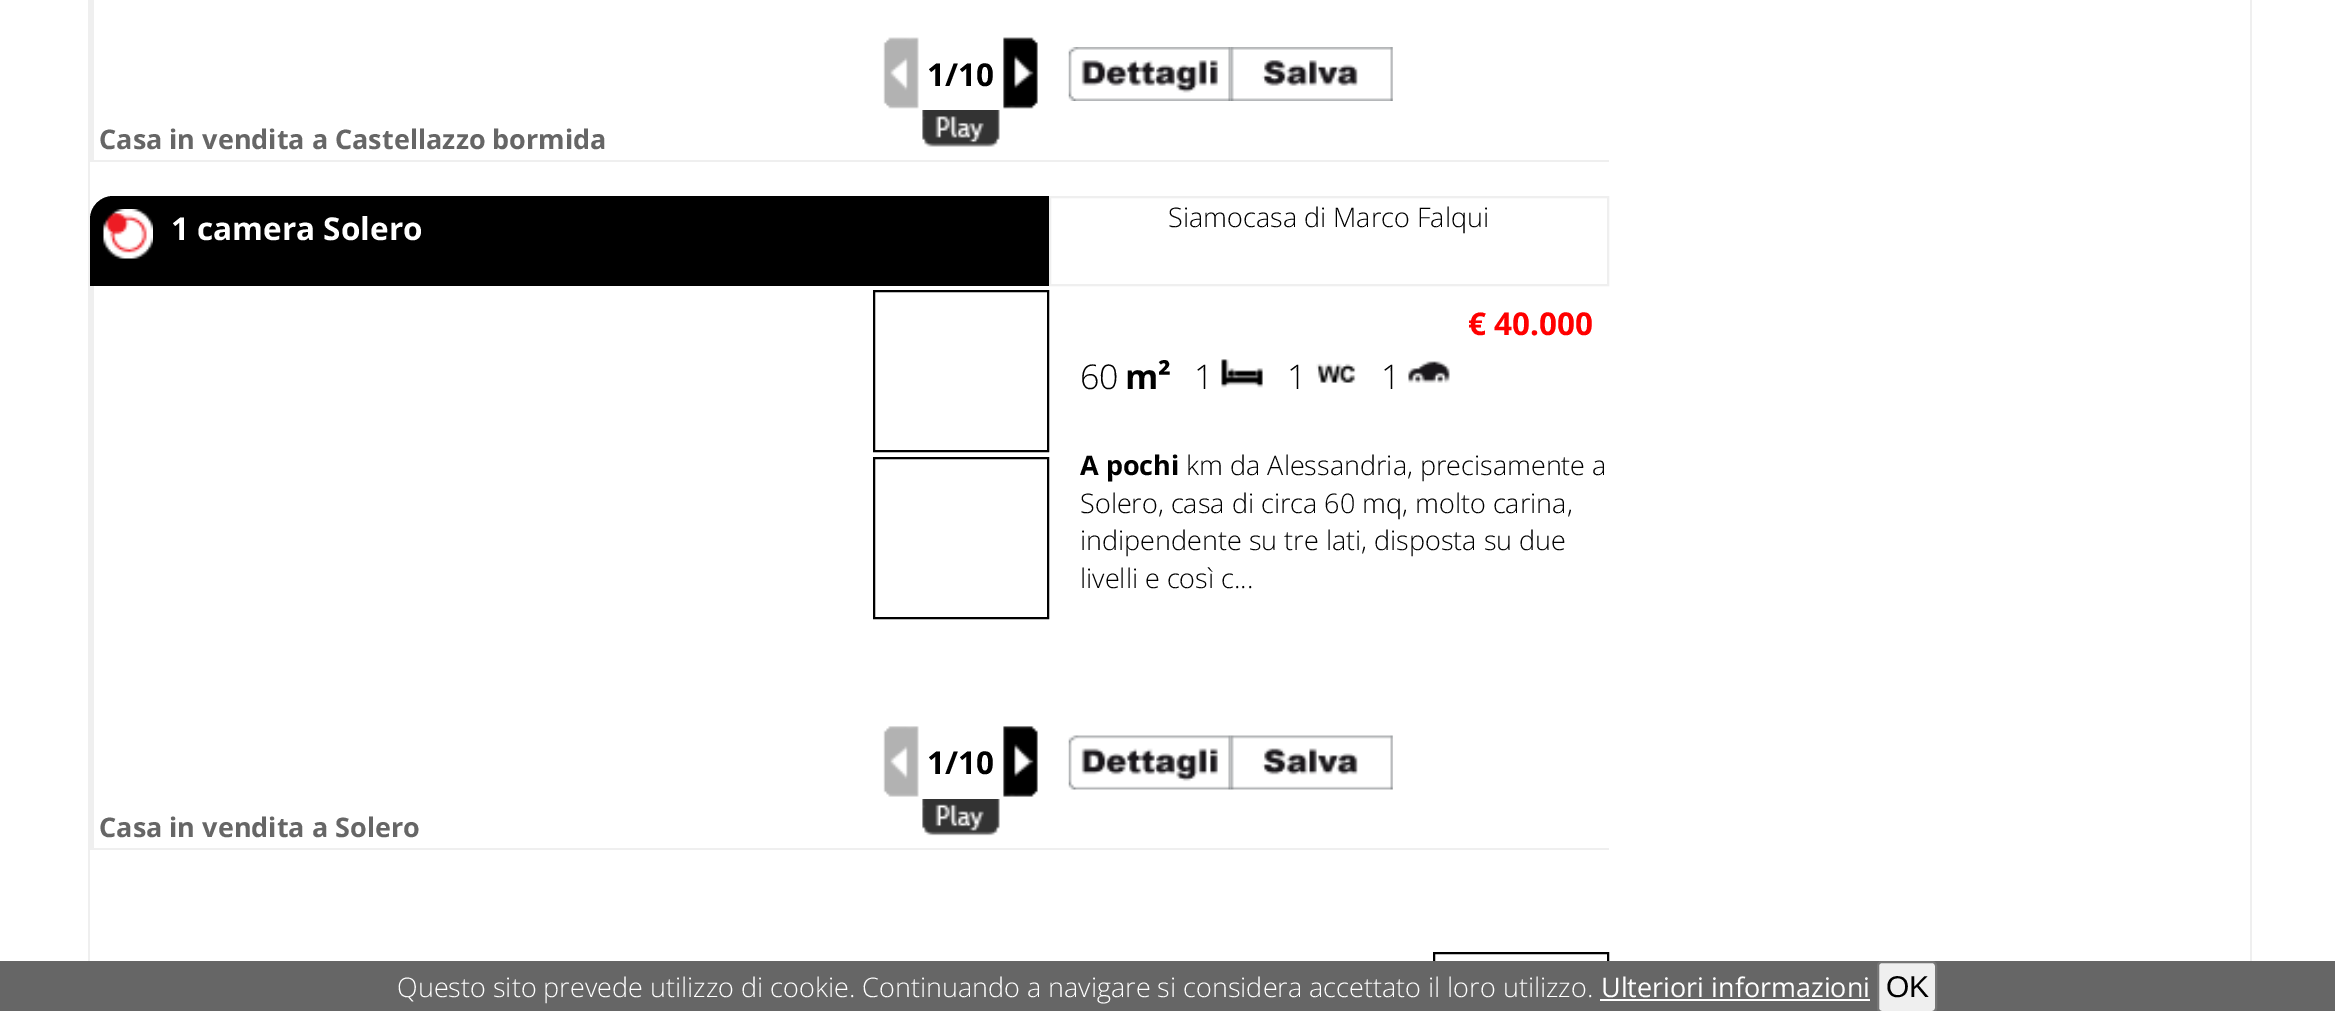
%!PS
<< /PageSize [2335 1011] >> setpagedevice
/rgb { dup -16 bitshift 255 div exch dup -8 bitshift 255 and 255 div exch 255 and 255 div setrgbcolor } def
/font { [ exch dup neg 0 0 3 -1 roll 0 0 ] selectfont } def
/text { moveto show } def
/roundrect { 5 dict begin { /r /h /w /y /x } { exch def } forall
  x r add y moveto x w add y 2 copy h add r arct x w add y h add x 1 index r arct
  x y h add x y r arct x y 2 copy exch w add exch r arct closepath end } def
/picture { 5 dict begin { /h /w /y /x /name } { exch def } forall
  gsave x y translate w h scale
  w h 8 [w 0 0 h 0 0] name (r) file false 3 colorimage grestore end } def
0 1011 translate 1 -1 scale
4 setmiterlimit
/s1 { /OpenSans-Bold 31.5 font 16#000000 rgb } def
/s2 { /OpenSans-Bold 27 font 16#666666 rgb } def
/s3 { /OpenSans-Bold 31.5 font 16#FFFFFF rgb } def
/s4 { /OpenSans-Light 27 font 16#000000 rgb } def
/s5 { /OpenSans-Bold 31.5 font 16#FF0000 rgb } def
/s6 { /OpenSans-Light 34 font 16#000000 rgb } def
/s7 { /OpenSans-Bold 34 font 16#000000 rgb } def
/s8 { /OpenSans-Bold 27 font 16#000000 rgb } def
/s9 { /OpenSans-Light 27 font 16#FFFFFF rgb } def
/s10 { /OpenSans-Regular 27 font 16#FFFFFF rgb } def
/s11 { /LiberationSans-Regular 30 font 16#000000 rgb } def
16#FFFFFF rgb
0 0 2335 1011 rectfill
16#EFEFEF rgb
2250 0 2 961 rectfill
88 0 2 961 rectfill
90 160 1519 2 rectfill
90 0 4 160 rectfill
(pic1.raw) 883 37 36 72 picture
s1
(1/10) 927 86 text
(pic2.raw) 1003 37 35 72 picture
(pic3.raw) 922 110 78 37 picture
(pic4.raw) 1068 47 163 54 picture
(pic5.raw) 1230 47 163 54 picture
s2
(Casa in vendita a Castellazzo bormida) 99 149 text
16#EFEFEF rgb
90 848 1519 2 rectfill
16#000000 rgb
113 196 moveto 1049 196 lineto 1049 286 lineto 90 286 lineto 90 219 lineto 90 206.5 100.5 196 113 196 curveto closepath fill
(pic6.raw) 103 209 50 50 picture
s3
(1 camera Solero) 171 240 text
16#EFEFEF rgb
2 setlinewidth
1050 197 558 88 rectstroke
s4
(Siamocasa di Marco Falqui) 1168 227 text
16#EFEFEF rgb
90 286 4 562 rectfill
16#000000 rgb
874 291 174 160 rectstroke
874 458 174 160 rectstroke
s5
(€ 40.000) 1468 335 text
s6
(60) 1080 389 text
s7
(m²) 1125 389 text
s6
(1) 1194 389 text
(pic7.raw) 1221 359 42 29 picture
(1) 1287 389 text
(pic8.raw) 1316 363 40 20 picture
(1) 1381 389 text
(pic9.raw) 1408 361 42 22 picture
s8
(A pochi) 1080 475 text
s4
(km da Alessandria, precisamente a) 1186 475 text
(Solero, casa di circa 60 mq, molto carina,) 1080 513 text
(indipendente su tre lati, disposta su due) 1080 550 text
(livelli e così c...) 1080 588 text
(pic10.raw) 883 726 36 71 picture
s1
(1/10) 927 774 text
(pic11.raw) 1003 726 35 71 picture
(pic12.raw) 922 799 78 37 picture
(pic13.raw) 1068 735 163 55 picture
(pic14.raw) 1230 735 163 55 picture
s2
(Casa in vendita a Solero) 99 837 text
16#000000 rgb
1434 953 174 54 rectstroke
16#666666 rgb
0 961 2335 50 rectfill
s9
(Questo sito prevede utilizzo di cookie. Continuando a navigare si considera accettato il loro utilizzo.) 397 997 text
s10
(Ulteriori informazioni) 1601 997 text
1600 999 270 2 rectfill
16#EFEFEF rgb
1878 962 58 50 4 roundrect gsave fill grestore
16#767676 rgb
stroke
s11
(OK) 1886 997 text
showpage
